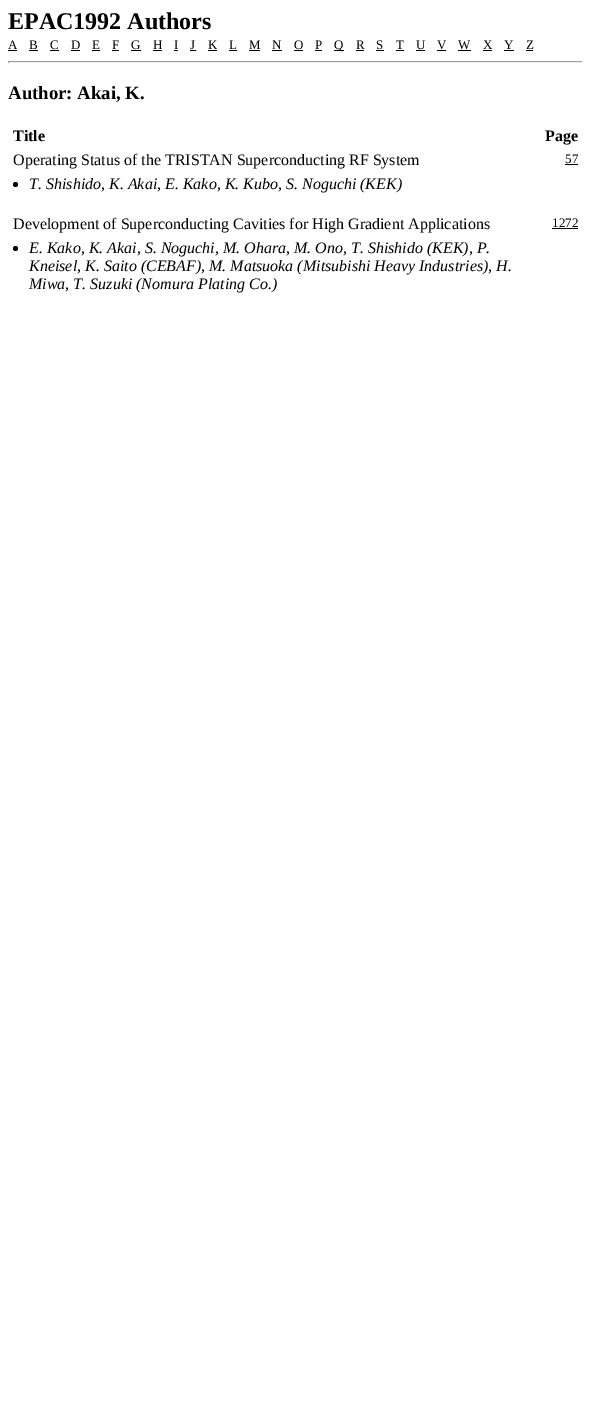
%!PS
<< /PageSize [591 1405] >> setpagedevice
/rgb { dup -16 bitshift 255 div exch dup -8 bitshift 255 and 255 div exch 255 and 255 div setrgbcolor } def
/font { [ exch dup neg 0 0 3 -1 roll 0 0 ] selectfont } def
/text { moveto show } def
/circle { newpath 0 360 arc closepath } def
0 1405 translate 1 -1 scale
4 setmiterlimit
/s1 { /LiberationSerif-Bold 24 font 16#000000 rgb } def
/s2 { /LiberationSerif-Regular 13 font 16#000000 rgb } def
/s3 { /LiberationSerif-Bold 18.75 font 16#000000 rgb } def
/s4 { /LiberationSerif-Bold 16 font 16#000000 rgb } def
/s5 { /LiberationSerif-Regular 16 font 16#000000 rgb } def
/s6 { /LiberationSerif-Italic 16 font 16#000000 rgb } def
16#FFFFFF rgb
0 0 591 1405 rectfill
s1
(EPAC1992 Authors) 8 29 text
s2
(A) 8 49 text
8 50 9 1 rectfill
(B) 29 49 text
29 50 9 1 rectfill
(C) 50 49 text
50 50 9 1 rectfill
(D) 71 49 text
71 50 9 1 rectfill
(E) 92 49 text
92 50 8 1 rectfill
(F) 112 49 text
112 50 7 1 rectfill
(G) 131 49 text
131 50 10 1 rectfill
(H) 153 49 text
153 50 9 1 rectfill
(I) 174 49 text
174 50 4 1 rectfill
(J) 190 49 text
190 50 6 1 rectfill
(K) 208 49 text
208 50 9 1 rectfill
(L) 229 49 text
229 50 8 1 rectfill
(M) 249 49 text
249 50 11 1 rectfill
(N) 272 49 text
272 50 10 1 rectfill
(O) 294 49 text
294 50 9 1 rectfill
(P) 315 49 text
315 50 7 1 rectfill
334 50 10 1 rectfill
(Q) 334 49 text
(R) 356 49 text
356 50 8 1 rectfill
(S) 376 49 text
376 50 8 1 rectfill
(T) 396 49 text
396 50 8 1 rectfill
(U) 416 49 text
416 50 9 1 rectfill
(V) 437 49 text
437 50 9 1 rectfill
(W) 458 49 text
458 50 13 1 rectfill
(X) 483 49 text
483 50 9 1 rectfill
(Y) 504 49 text
504 50 10 1 rectfill
(Z) 526 49 text
526 50 7 1 rectfill
16#9F9F9F rgb
8 61 575 1 rectfill
16#EEEEEE rgb
582 61 1 2 rectfill
8 62 575 1 rectfill
16#9F9F9F rgb
8 61 1 2 rectfill
s3
(Author: Akai, K.) 8 99 text
s4
(Title) 13 141 text
(Page) 545 141 text
s5
(Operating Status of the TRISTAN Superconducting RF System) 13 165 text
s2
(57) 565 163 text
565 164 13 1 rectfill
15.5 184.5 2.5 circle fill
s6
(T. Shishido, K. Akai, E. Kako, K. Kubo, S. Noguchi \(KEK\)) 29 189 text
s5
(Development of Superconducting Cavities for High Gradient Applications) 13 229 text
s2
(1272) 552 227 text
552 228 26 1 rectfill
15.5 248.5 2.5 circle fill
s6
(E. Kako, K. Akai, S. Noguchi, M. Ohara, M. Ono, T. Shishido \(KEK\), P.) 29 253 text
(Kneisel, K. Saito \(CEBAF\), M. Matsuoka \(Mitsubishi Heavy Industries\), H.) 29 271 text
(Miwa, T. Suzuki \(Nomura Plating Co.\)) 29 289 text
showpage
